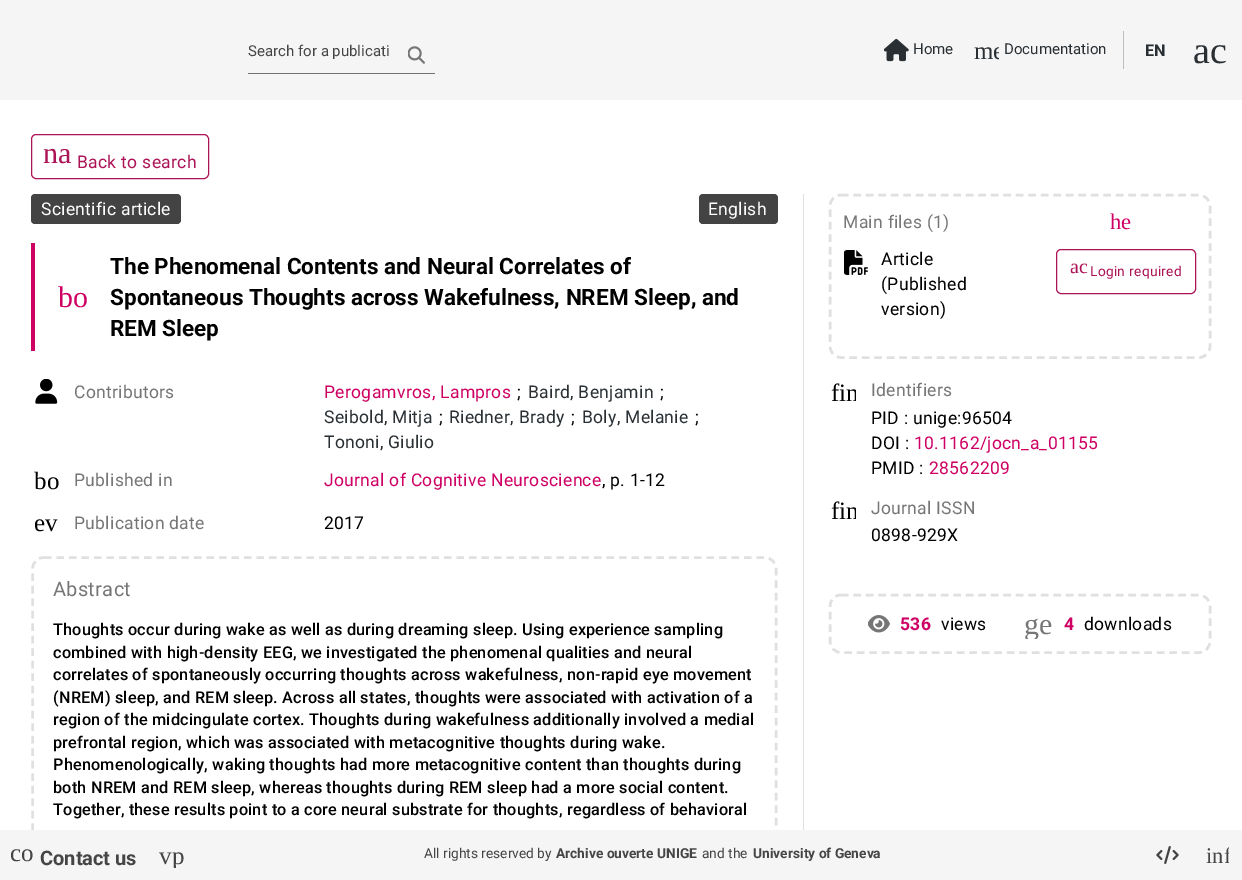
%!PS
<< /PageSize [1242 880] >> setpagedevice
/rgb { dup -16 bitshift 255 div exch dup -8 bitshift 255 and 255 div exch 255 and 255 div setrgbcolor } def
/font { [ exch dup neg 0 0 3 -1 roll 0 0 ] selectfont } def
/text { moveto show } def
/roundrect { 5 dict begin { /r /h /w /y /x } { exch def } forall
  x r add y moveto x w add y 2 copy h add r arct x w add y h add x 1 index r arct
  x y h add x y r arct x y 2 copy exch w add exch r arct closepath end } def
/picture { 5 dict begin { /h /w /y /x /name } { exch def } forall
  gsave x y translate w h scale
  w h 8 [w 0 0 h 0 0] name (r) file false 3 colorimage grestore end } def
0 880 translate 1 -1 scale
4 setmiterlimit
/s1 { /Roboto-Regular 15 font 16#454545 rgb } def
/s2 { /Roboto-Regular 15 font 16#292F33 rgb } def
/s3 { /LiberationSerif-Regular 25 font 16#292F33 rgb } def
/s4 { /Roboto-Bold 16.25 font 16#292F33 rgb } def
/s5 { /LiberationSerif-Regular 38 font 16#292F33 rgb } def
/s6 { /LiberationSerif-Regular 30 font 16#AD1457 rgb } def
/s7 { /LiberationSerif-Regular 30 font 16#CF0063 rgb } def
/s8 { /Roboto-Bold 22.5 font 16#000000 rgb } def
/s9 { /LiberationSerif-Regular 25 font 16#000000 rgb } def
/s10 { /LiberationSerif-Regular 22.5 font 16#CF0063 rgb } def
/s11 { /LiberationSerif-Regular 20 font 16#AD1457 rgb } def
/s12 { /LiberationSerif-Regular 30 font 16#767676 rgb } def
/s13 { /LiberationSerif-Regular 25 font 16#454545 rgb } def
/s14 { /Roboto-Bold 20 font 16#454545 rgb } def
/s15 { /Roboto-Regular 13.75 font 16#454545 rgb } def
/s16 { /Roboto-Bold 13.75 font 16#454545 rgb } def
/s17 { /LiberationSerif-Regular 22.5 font 16#454545 rgb } def
16#FFFFFF rgb
0 0 1242 880 rectfill
16#F5F5F5 rgb
0 0 1242 100 rectfill
s1
(Search for a publicati) 248 56 text
(pic1.raw) 408 46 17 18 picture
16#717171 rgb
248 73 187 1 rectfill
(pic2.raw) 884 38 25 24 picture
s2
(Home) 913 54 text
gsave
974 38 25 25 rectclip
s3
(me) 974 59 text
grestore
(Documentation) 1004 54 text
16#BDBDBD rgb
1123 31 1 38 rectfill
s4
(EN) 1145 56 text
s5
(ac) 1193 63 text
16#AD1457 rgb
31.5 134.5 177 44 4.5 roundrect stroke
s6
(na) 43 163 text
/Roboto-Regular 17.5 font
77 168 moveto 0.3 0 (Back to search) ashow
16#E0E0E0 rgb
803 194 1 636 rectfill
16#434343 rgb
31 194 150 30 4 roundrect fill
16#FFFFFF rgb
41 215 moveto 0.3 0 (Scientific article) ashow
16#434343 rgb
699 194 79 30 4 roundrect fill
16#FFFFFF rgb
708 215 moveto 0.3 0 (English) ashow
16#CF0063 rgb
31 243 4 108 rectfill
s7
(bo) 58 307 text
s8
(The Phenomenal Contents and Neural Correlates of) 110 274 text
(Spontaneous Thoughts across Wakefulness, NREM Sleep, and) 110 305 text
(REM Sleep) 110 336 text
(pic3.raw) 35 379 23 25 picture
/Roboto-Regular 17.5 font
16#767676 rgb
74 398 moveto 0.3 0 (Contributors) ashow
16#CF0063 rgb
324 398 moveto 0.3 0 (Perogamvros, Lampros) ashow
16#000000 rgb
517 398 moveto 0.3 0 (;) ashow
16#292F33 rgb
528 398 moveto 0.3 0 (Baird, Benjamin) ashow
16#000000 rgb
660 398 moveto 0.3 0 (;) ashow
16#292F33 rgb
324 423 moveto 0.3 0 (Seibold, Mitja) ashow
16#000000 rgb
439 423 moveto 0.3 0 (;) ashow
16#292F33 rgb
449 423 moveto 0.3 0 (Riedner, Brady) ashow
16#000000 rgb
571 423 moveto 0.3 0 (;) ashow
16#292F33 rgb
582 423 moveto 0.3 0 (Boly, Melanie) ashow
16#000000 rgb
695 423 moveto 0.3 0 (;) ashow
16#292F33 rgb
324 448 moveto 0.3 0 (Tononi, Giulio) ashow
s9
(bo) 34 489 text
/Roboto-Regular 17.5 font
16#767676 rgb
74 486 moveto 0.3 0 (Published in) ashow
16#CF0063 rgb
324 486 moveto 0.3 0 (Journal of Cognitive Neuroscience) ashow
16#000000 rgb
602 486 moveto 0.3 0 (, p. 1-12) ashow
s9
(ev) 34 531 text
/Roboto-Regular 17.5 font
16#767676 rgb
74 529 moveto 0.3 0 (Publication date) ashow
16#000000 rgb
324 529 moveto 0.3 0 (2017) ashow
16#E0E0E0 rgb
2.5 setlinewidth
[7.5 5] 0 setdash
44 557.5 moveto 765 557.5 lineto 771 557.5 776 562.5 776 569 curveto 776 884 lineto 776 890 771 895 765 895 curveto 44 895 lineto 37.5 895 32.5 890 32.5 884 curveto 32.5 569 lineto 32.5 562.5 37.5 557.5 44 557.5 curveto closepath stroke
/Roboto-Regular 20 font
16#767676 rgb
53 596 moveto 0.3 0 (Abstract) ashow
/Roboto-Medium 16.25 font
16#000000 rgb
53 635 moveto 0.2 0 (Thoughts occur during wake as well as during dreaming sleep. Using experience sampling) ashow
53 658 moveto 0.2 0 (combined with high-density EEG, we investigated the phenomenal qualities and neural) ashow
53 680 moveto 0.2 0 (correlates of spontaneously occurring thoughts across wakefulness, non-rapid eye movement) ashow
53 703 moveto 0.2 0 (\(NREM\) sleep, and REM sleep. Across all states, thoughts were associated with activation of a) ashow
53 725 moveto 0.2 0 (region of the midcingulate cortex. Thoughts during wakefulness additionally involved a medial) ashow
53 748 moveto 0.2 0 (prefrontal region, which was associated with metacognitive thoughts during wake.) ashow
53 770 moveto 0.2 0 (Phenomenologically, waking thoughts had more metacognitive content than thoughts during) ashow
53 793 moveto 0.2 0 (both NREM and REM sleep, whereas thoughts during REM sleep had a more social content.) ashow
53 815 moveto 0.2 0 (Together, these results point to a core neural substrate for thoughts, regardless of behavioral) ashow
16#E0E0E0 rgb
841 195 moveto 1199 195 lineto 1205 195 1210 200 1210 206 curveto 1210 346 lineto 1210 352.5 1205 357.5 1199 357.5 curveto 841 357.5 lineto 835 357.5 830 352.5 830 346 curveto 830 206 lineto 830 200 835 195 841 195 curveto closepath stroke
/Roboto-Regular 17.5 font
16#767676 rgb
843 228 moveto 0.3 0 (Main files \(1\)) ashow
s10
(he) 1110 229 text
(pic4.raw) 844 250 24 25 picture
/Roboto-Regular 17.5 font
16#000000 rgb
881 265 moveto 0.3 0 (Article) ashow
881 290 moveto 0.3 0 (\(Published) ashow
881 315 moveto 0.3 0 (version\)) ashow
16#AD1457 rgb
1 setlinewidth
[] 0 setdash
1056.5 249.5 139 44 4.5 roundrect stroke
s11
(ac) 1070 273 text
/Roboto-Regular 13.75 font
1090 276 moveto 0.3 0 (Login required) ashow
gsave
831 380 25 25 rectclip
s9
(fin) 831 401 text
grestore
/Roboto-Regular 17.5 font
16#767676 rgb
871 396 moveto 0.3 0 (Identifiers) ashow
16#000000 rgb
871 424 moveto 0.3 0 (PID : unige:96504) ashow
871 449 moveto 0.3 0 (DOI :) ashow
16#CF0063 rgb
914 449 moveto 0.3 0 (10.1162/jocn_a_01155) ashow
16#000000 rgb
871 474 moveto 0.3 0 (PMID :) ashow
16#CF0063 rgb
929 474 moveto 0.3 0 (28562209) ashow
gsave
831 498 25 25 rectclip
s9
(fin) 831 519 text
grestore
16#767676 rgb
871 514 moveto 0.3 0 (Journal ISSN) ashow
16#000000 rgb
871 541 moveto 0.3 0 (0898-929X) ashow
16#E0E0E0 rgb
2.5 setlinewidth
[7.5 5] 0 setdash
841 595 moveto 1199 595 lineto 1205 595 1210 600 1210 606 curveto 1210 641 lineto 1210 647.5 1205 652.5 1199 652.5 curveto 841 652.5 lineto 835 652.5 830 647.5 830 641 curveto 830 606 lineto 830 600 835 595 841 595 curveto closepath stroke
(pic5.raw) 868 615 22 18 picture
/Roboto-Bold 17.5 font
16#CF0063 rgb
900 630 moveto 0.3 0 (536) ashow
/Roboto-Regular 17.5 font
16#000000 rgb
941 630 moveto 0.3 0 (views) ashow
gsave
1024 609 30 30 rectclip
s12
(ge) 1024 634 text
grestore
/Roboto-Bold 17.5 font
16#CF0063 rgb
1064 630 moveto 0.3 0 (4) ashow
/Roboto-Regular 17.5 font
16#000000 rgb
1084 630 moveto 0.3 0 (downloads) ashow
16#F5F5F5 rgb
0 830 1242 50 rectfill
s13
(co) 10 861 text
s14
(Contact us) 40 865 text
gsave
159 843 25 25 rectclip
s13
(vp) 159 864 text
grestore
s15
(All rights reserved by) 424 858 text
s16
(Archive ouverte UNIGE) 556 858 text
s15
(and the) 702 858 text
s16
(University of Geneva) 753 858 text
(pic6.raw) 1156 846 23 18 picture
gsave
1206 844 23 22 rectclip
s17
(inf) 1206 863 text
grestore
showpage
